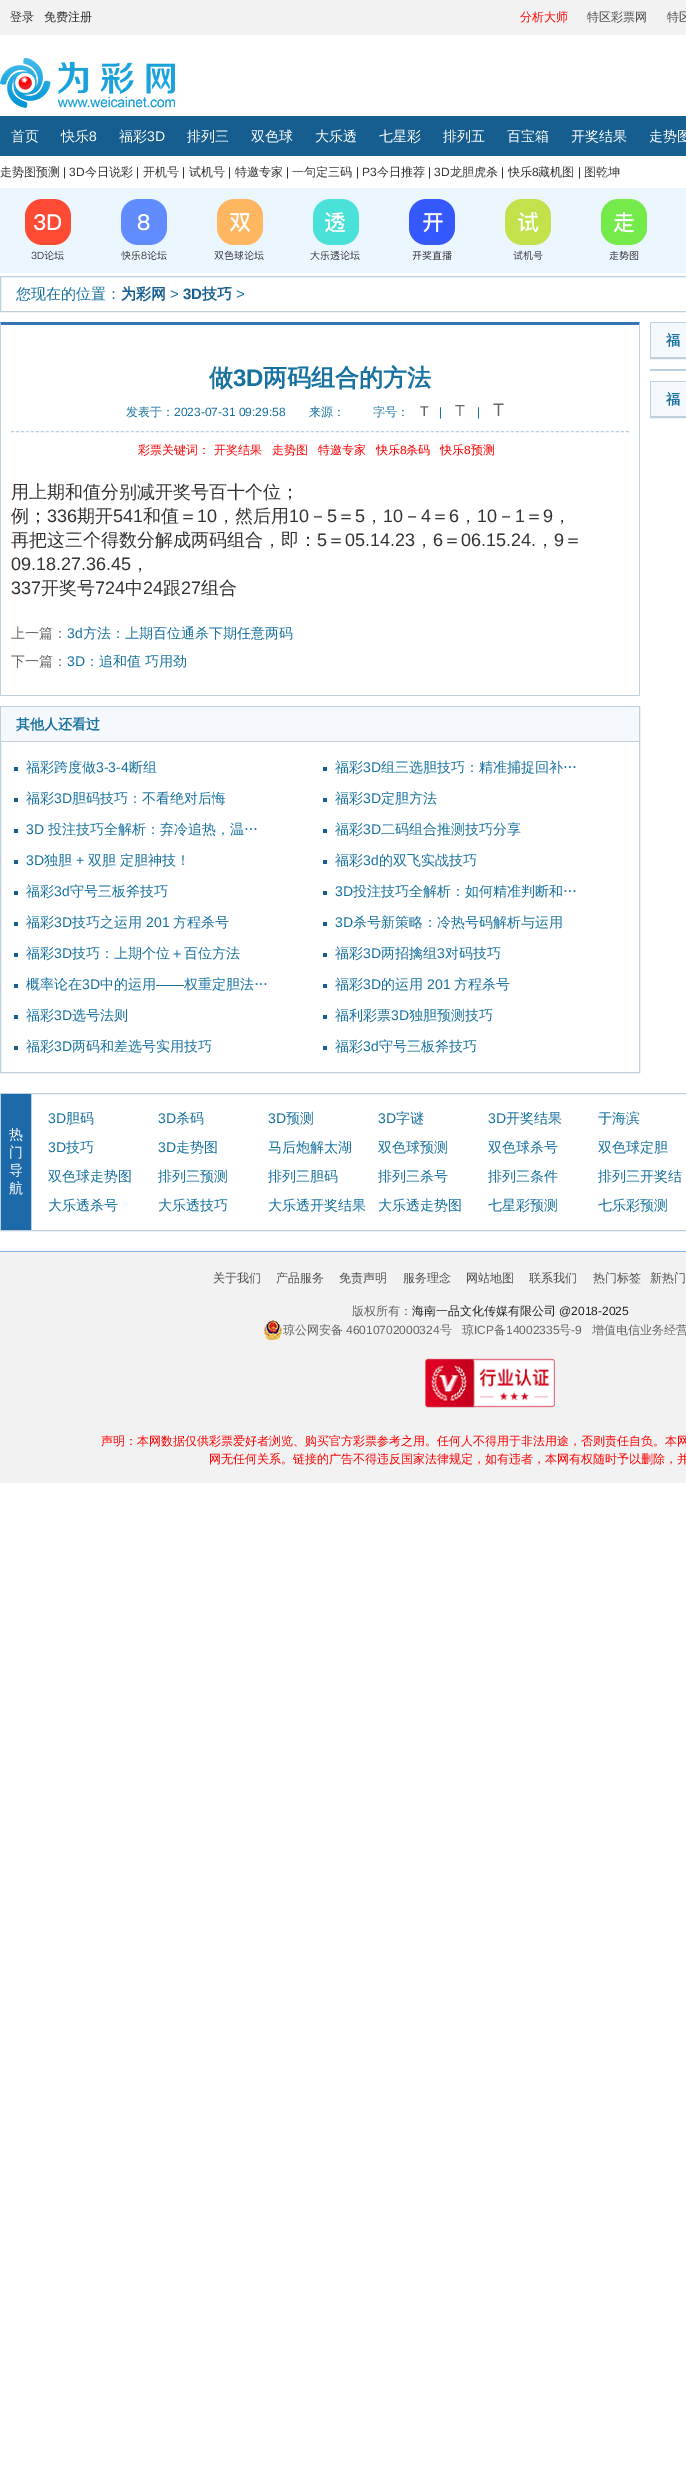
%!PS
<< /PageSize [686 2478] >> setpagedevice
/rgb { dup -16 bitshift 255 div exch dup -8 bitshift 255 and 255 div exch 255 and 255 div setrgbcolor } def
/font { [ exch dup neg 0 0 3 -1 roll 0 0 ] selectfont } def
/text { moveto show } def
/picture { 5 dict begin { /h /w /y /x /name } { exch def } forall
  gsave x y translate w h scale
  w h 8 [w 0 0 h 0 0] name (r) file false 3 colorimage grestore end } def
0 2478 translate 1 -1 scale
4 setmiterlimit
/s1 { /WenQuanYiZenHei-Medium 12 font 16#333333 rgb } def
/s2 { /WenQuanYiZenHei-Medium 12 font 16#FF0000 rgb } def
/s3 { /WenQuanYiZenHei-Medium 12 font 16#4D4D4D rgb } def
/s4 { /WenQuanYiZenHei-Medium 14 font 16#FFFFFF rgb } def
/s5 { /LiberationSans-Regular 14 font 16#FFFFFF rgb } def
/s6 { /LiberationSans-Regular 12 font 16#333333 rgb } def
/s7 { /WenQuanYiZenHei-Medium 15 font 16#1772A0 rgb } def
/s8 { /WenQuanYiZenHei-Bold 15 font 16#165E8F rgb } def
/s9 { /LiberationSans-Regular 15 font 16#1772A0 rgb } def
/s10 { /LiberationSans-Bold 15 font 16#165E8F rgb } def
/s11 { /WenQuanYiZenHei-Bold 24 font 16#1772A0 rgb } def
/s12 { /LiberationSans-Bold 24 font 16#1772A0 rgb } def
/s13 { /WenQuanYiZenHei-Medium 12 font 16#1772A0 rgb } def
/s14 { /LiberationSans-Regular 12 font 16#1772A0 rgb } def
/s15 { /LiberationSans-Regular 14 font 16#666666 rgb } def
/s16 { /LiberationSans-Regular 16 font 16#666666 rgb } def
/s17 { /LiberationSans-Regular 18 font 16#666666 rgb } def
/s18 { /LiberationSans-Regular 12 font 16#FF0000 rgb } def
/s19 { /WenQuanYiZenHei-Medium 18 font 16#333333 rgb } def
/s20 { /LiberationSans-Regular 18 font 16#333333 rgb } def
/s21 { /WenQuanYiZenHei-Medium 14 font 16#666666 rgb } def
/s22 { /LiberationSans-Regular 14 font 16#1772A0 rgb } def
/s23 { /WenQuanYiZenHei-Medium 14 font 16#1772A0 rgb } def
/s24 { /WenQuanYiZenHei-Bold 14 font 16#1772A0 rgb } def
/s25 { /WenQuanYiZenHei-Medium 12 font 16#606060 rgb } def
/s26 { /WenQuanYiZenHei-Medium 12 font 16#242424 rgb } def
/s27 { /LiberationSans-Regular 12 font 16#242424 rgb } def
/s28 { /WenQuanYiZenHei-Medium 12 font 16#666666 rgb } def
/s29 { /LiberationSans-Regular 12 font 16#666666 rgb } def
/s30 { /LiberationSans-Regular 12 font 16#606060 rgb } def
16#FFFFFF rgb
0 0 686 2478 rectfill
16#F2F2F2 rgb
0 0 686 35 rectfill
s1
(登录) 10 21 text
(免费注册) 44 21 text
s2
(分析大师) 520 21 text
s3
(特区彩票网) 587 21 text
(特区) 667 21 text
(pic1.raw) 0 58 175 50 picture
16#165E8F rgb
0 116 686 40 rectfill
s4
(首页) 11 141 text
(快乐) 61 141 text
s5
(8) 89 141 text
s4
(福彩) 119 141 text
s5
(3D) 147 141 text
s4
(排列三) 187 141 text
(双色球) 251 141 text
(大乐透) 315 141 text
(七星彩) 379 141 text
(排列五) 443 141 text
(百宝箱) 507 141 text
(开奖结果) 571 141 text
(走势图) 649 141 text
s1
(走势图预测) 0 176 text
s6
(| 3D) 63 176 text
s1
(今日说彩) 85 176 text
s6
(|) 136 176 text
s1
(开机号) 143 176 text
s6
(|) 182 176 text
s1
(试机号) 189 176 text
s6
(|) 228 176 text
s1
(特邀专家) 235 176 text
s6
(|) 286 176 text
s1
(一句定三码) 292 176 text
s6
(| P3) 356 176 text
s1
(今日推荐) 377 176 text
s6
(| 3D) 428 176 text
s1
(龙胆虎杀) 450 176 text
s6
(|) 501 176 text
s1
(快乐) 508 176 text
s6
(8) 532 176 text
s1
(藏机图) 538 176 text
s6
(|) 578 176 text
s1
(图乾坤) 584 176 text
16#ECF6FF rgb
0 188 686 85 rectfill
(pic2.raw) 25 199 46 61 picture
(pic3.raw) 121 199 46 61 picture
(pic4.raw) 214 199 50 61 picture
(pic5.raw) 310 199 50 61 picture
(pic6.raw) 409 199 46 61 picture
(pic7.raw) 505 199 46 61 picture
(pic8.raw) 601 199 46 61 picture
16#BECFDE rgb
0.5 276.5 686 35 rectstroke
s7
(您现在的位置：) 16 299 text
s8
(为彩网) 121 299 text
s9
(>) 170 299 text
s10
(3D) 183 299 text
s8
(技巧) 202 299 text
s9
(>) 236 299 text
16#3874B1 rgb
0 322 moveto 640 322 lineto 639 325 lineto 1 325 lineto closepath fill
16#BECFDE rgb
640 322 moveto 640 696 lineto 639 695 lineto 639 325 lineto closepath fill
0 695 640 1 rectfill
0 696 moveto 0 322 lineto 1 325 lineto 1 695 lineto closepath fill
[3 2] 0 setdash
11 431.5 moveto 629 431.5 lineto stroke
s11
(做) 209 386 text
s12
(3D) 233 386 text
s11
(两码组合的方法) 263 386 text
s13
(发表于：) 126 416 text
s14
(2023-07-31 09:29:58) 174 416 text
s13
(来源：) 309 416 text
(字号：) 373 416 text
s15
(T) 420 416 text
s14
(|) 439 416 text
s16
(T) 455 416 text
s14
(|) 477 416 text
s17
(T) 493 416 text
s2
(彩票关键词： 开奖结果) 138 454 text
(走势图) 272 454 text
(特邀专家) 318 454 text
(快乐) 376 454 text
s18
(8) 400 454 text
s2
(杀码) 406 454 text
(快乐) 440 454 text
s18
(8) 464 454 text
s2
(预测) 471 454 text
s19
(用上期和值分别减开奖号百十个位；) 11 498 text
(例；) 11 522 text
s20
(336) 47 522 text
s19
(期开) 77 522 text
s20
(541) 113 522 text
s19
(和值＝) 143 522 text
s20
(10) 197 522 text
s19
(，然后用) 217 522 text
s20
(10) 289 522 text
s19
(－) 309 522 text
s20
(5) 327 522 text
s19
(＝) 337 522 text
s20
(5) 355 522 text
(10) 383 522 text
s19
(－) 403 522 text
s20
(4) 421 522 text
s19
(＝) 431 522 text
s20
(6) 449 522 text
(10) 477 522 text
s19
(－) 497 522 text
s20
(1) 515 522 text
s19
(＝) 525 522 text
s20
(9) 543 522 text
s19
(，) 365 522 text
(，) 459 522 text
(，) 553 522 text
(再把这三个得数分解成两码组合，即：) 11 546 text
s20
(5) 317 546 text
s19
(＝) 327 546 text
s20
(05.14.23) 345 546 text
(6) 433 546 text
s19
(＝) 443 546 text
s20
(06.15.24.) 461 546 text
(9) 554 546 text
s19
(＝) 564 546 text
(，) 415 546 text
(，) 536 546 text
s20
(09.18.27.36.45) 11 570 text
s19
(，) 131 570 text
s20
(337) 11 594 text
s19
(开奖号) 41 594 text
s20
(724) 95 594 text
s19
(中) 125 594 text
s20
(24) 143 594 text
s19
(跟) 163 594 text
s20
(27) 181 594 text
s19
(组合) 201 594 text
s21
(上一篇：) 11 638 text
s22
(3d) 67 638 text
s23
(方法：上期百位通杀下期任意两码) 83 638 text
s21
(下一篇：) 11 666 text
s22
(3D) 67 666 text
s23
(：追和值 巧用劲) 85 666 text
16#BECFDE rgb
[] 0 setdash
0.5 706.5 639 366 rectstroke
16#F5F8FD rgb
1 707 638 34 rectfill
16#C4CED8 rgb
1 741 638 1 rectfill
s24
(其他人还看过) 16 729 text
16#165E8F rgb
14 767 4 4 rectfill
s23
(福彩跨度做) 26 772 text
s22
(3-3-4) 96 772 text
s23
(断组) 129 772 text
16#165E8F rgb
323 767 4 4 rectfill
s23
(福彩) 335 772 text
s22
(3D) 363 772 text
s23
(组三选胆技巧：精准捕捉回补…) 381 772 text
16#165E8F rgb
14 798 4 4 rectfill
s23
(福彩) 26 803 text
s22
(3D) 54 803 text
s23
(胆码技巧：不看绝对后悔) 72 803 text
16#165E8F rgb
323 798 4 4 rectfill
s23
(福彩) 335 803 text
s22
(3D) 363 803 text
s23
(定胆方法) 381 803 text
16#165E8F rgb
14 829 4 4 rectfill
s22
(3D) 26 834 text
s23
(投注技巧全解析：弃冷追热，温…) 48 834 text
16#165E8F rgb
323 829 4 4 rectfill
s23
(福彩) 335 834 text
s22
(3D) 363 834 text
s23
(二码组合推测技巧分享) 381 834 text
16#165E8F rgb
14 860 4 4 rectfill
s22
(3D) 26 865 text
s23
(独胆) 44 865 text
s22
(+) 76 865 text
s23
(双胆 定胆神技！) 88 865 text
16#165E8F rgb
323 860 4 4 rectfill
s23
(福彩) 335 865 text
s22
(3d) 363 865 text
s23
(的双飞实战技巧) 379 865 text
16#165E8F rgb
14 891 4 4 rectfill
s23
(福彩) 26 896 text
s22
(3d) 54 896 text
s23
(守号三板斧技巧) 70 896 text
16#165E8F rgb
323 891 4 4 rectfill
s22
(3D) 335 896 text
s23
(投注技巧全解析：如何精准判断和…) 353 896 text
16#165E8F rgb
14 922 4 4 rectfill
s23
(福彩) 26 927 text
s22
(3D) 54 927 text
s23
(技巧之运用) 72 927 text
s22
(201) 146 927 text
s23
(方程杀号) 173 927 text
16#165E8F rgb
323 922 4 4 rectfill
s22
(3D) 335 927 text
s23
(杀号新策略：冷热号码解析与运用) 353 927 text
16#165E8F rgb
14 953 4 4 rectfill
s23
(福彩) 26 958 text
s22
(3D) 54 958 text
s23
(技巧：上期个位＋百位方法) 72 958 text
16#165E8F rgb
323 953 4 4 rectfill
s23
(福彩) 335 958 text
s22
(3D) 363 958 text
s23
(两招擒组) 381 958 text
s22
(3) 437 958 text
s23
(对码技巧) 445 958 text
16#165E8F rgb
14 984 4 4 rectfill
s23
(概率论在) 26 989 text
s22
(3D) 82 989 text
s23
(中的运用) 100 989 text
s22
(——) 156 989 text
s23
(权重定胆法…) 184 989 text
16#165E8F rgb
323 984 4 4 rectfill
s23
(福彩) 335 989 text
s22
(3D) 363 989 text
s23
(的运用) 381 989 text
s22
(201) 427 989 text
s23
(方程杀号) 454 989 text
16#165E8F rgb
14 1015 4 4 rectfill
s23
(福彩) 26 1020 text
s22
(3D) 54 1020 text
s23
(选号法则) 72 1020 text
16#165E8F rgb
323 1015 4 4 rectfill
s23
(福利彩票) 335 1020 text
s22
(3D) 391 1020 text
s23
(独胆预测技巧) 409 1020 text
16#165E8F rgb
14 1046 4 4 rectfill
s23
(福彩) 26 1051 text
s22
(3D) 54 1051 text
s23
(两码和差选号实用技巧) 72 1051 text
16#165E8F rgb
323 1046 4 4 rectfill
s23
(福彩) 335 1051 text
s22
(3d) 363 1051 text
s23
(守号三板斧技巧) 379 1051 text
16#BECFDE rgb
650.5 322.5 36 36 rectstroke
16#F5F8FD rgb
651 323 35 34 rectfill
16#C4CED8 rgb
651 357 35 1 rectfill
s24
(福) 666 345 text
16#BECFDE rgb
650 369 36 2 rectfill
650.5 381.5 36 36 rectstroke
16#F5F8FD rgb
651 382 35 34 rectfill
16#C4CED8 rgb
651 416 35 1 rectfill
s24
(福) 666 404 text
16#BECFDE rgb
0.5 1093.5 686 137 rectstroke
16#1D6AAA rgb
1 1094 30 136 rectfill
16#BECFDE rgb
31 1094 1 136 rectfill
s4
(热) 9 1139 text
(门) 9 1157 text
(导) 9 1175 text
(航) 9 1193 text
s22
(3D) 48 1123 text
s23
(胆码) 66 1123 text
s22
(3D) 158 1123 text
s23
(杀码) 176 1123 text
s22
(3D) 268 1123 text
s23
(预测) 286 1123 text
s22
(3D) 378 1123 text
s23
(字谜) 396 1123 text
s22
(3D) 488 1123 text
s23
(开奖结果) 506 1123 text
(于海滨) 598 1123 text
s22
(3D) 48 1152 text
s23
(技巧) 66 1152 text
s22
(3D) 158 1152 text
s23
(走势图) 176 1152 text
(马后炮解太湖) 268 1152 text
(双色球预测) 378 1152 text
(双色球杀号) 488 1152 text
(双色球定胆) 598 1152 text
(双色球走势图) 48 1181 text
(排列三预测) 158 1181 text
(排列三胆码) 268 1181 text
(排列三杀号) 378 1181 text
(排列三条件) 488 1181 text
(排列三开奖结) 598 1181 text
(大乐透杀号) 48 1210 text
(大乐透技巧) 158 1210 text
(大乐透开奖结果) 268 1210 text
(大乐透走势图) 378 1210 text
(七星彩预测) 488 1210 text
(七乐彩预测) 598 1210 text
16#F2F2F2 rgb
0 1252 686 231 rectfill
16#82B0D8 rgb
0 1251 686 1 rectfill
s3
(关于我们) 213 1282 text
(产品服务) 276 1282 text
(免责声明) 339 1282 text
(服务理念) 403 1282 text
(网站地图) 466 1282 text
(联系我们) 529 1282 text
(热门标签) 593 1282 text
(新热门) 650 1282 text
s25
(版权所有：) 352 1315 text
s26
(海南一品文化传媒有限公司) 412 1315 text
s27
(@2018-2025) 559 1315 text
(pic9.raw) 264 1320 18 20 picture
s28
(琼公网安备) 283 1334 text
s29
(46010702000324) 346 1334 text
s28
(号) 440 1334 text
(琼) 462 1334 text
s29
(ICP) 474 1334 text
s28
(备) 494 1334 text
s29
(14002335) 506 1334 text
s28
(号) 559 1334 text
s29
(-) 571 1334 text
s30
(9) 575 1334 text
s28
(增值电信业务经营) 592 1334 text
(pic10.raw) 425 1358 130 50 picture
s2
(声明：本网数据仅供彩票爱好者浏览、购买官方彩票参考之用。任何人不得用于非法用途，否则责任自负。本网) 101 1445 text
(网无任何关系。链接的广告不得违反国家法律规定，如有违者，本网有权随时予以删除，并) 209 1463 text
showpage
